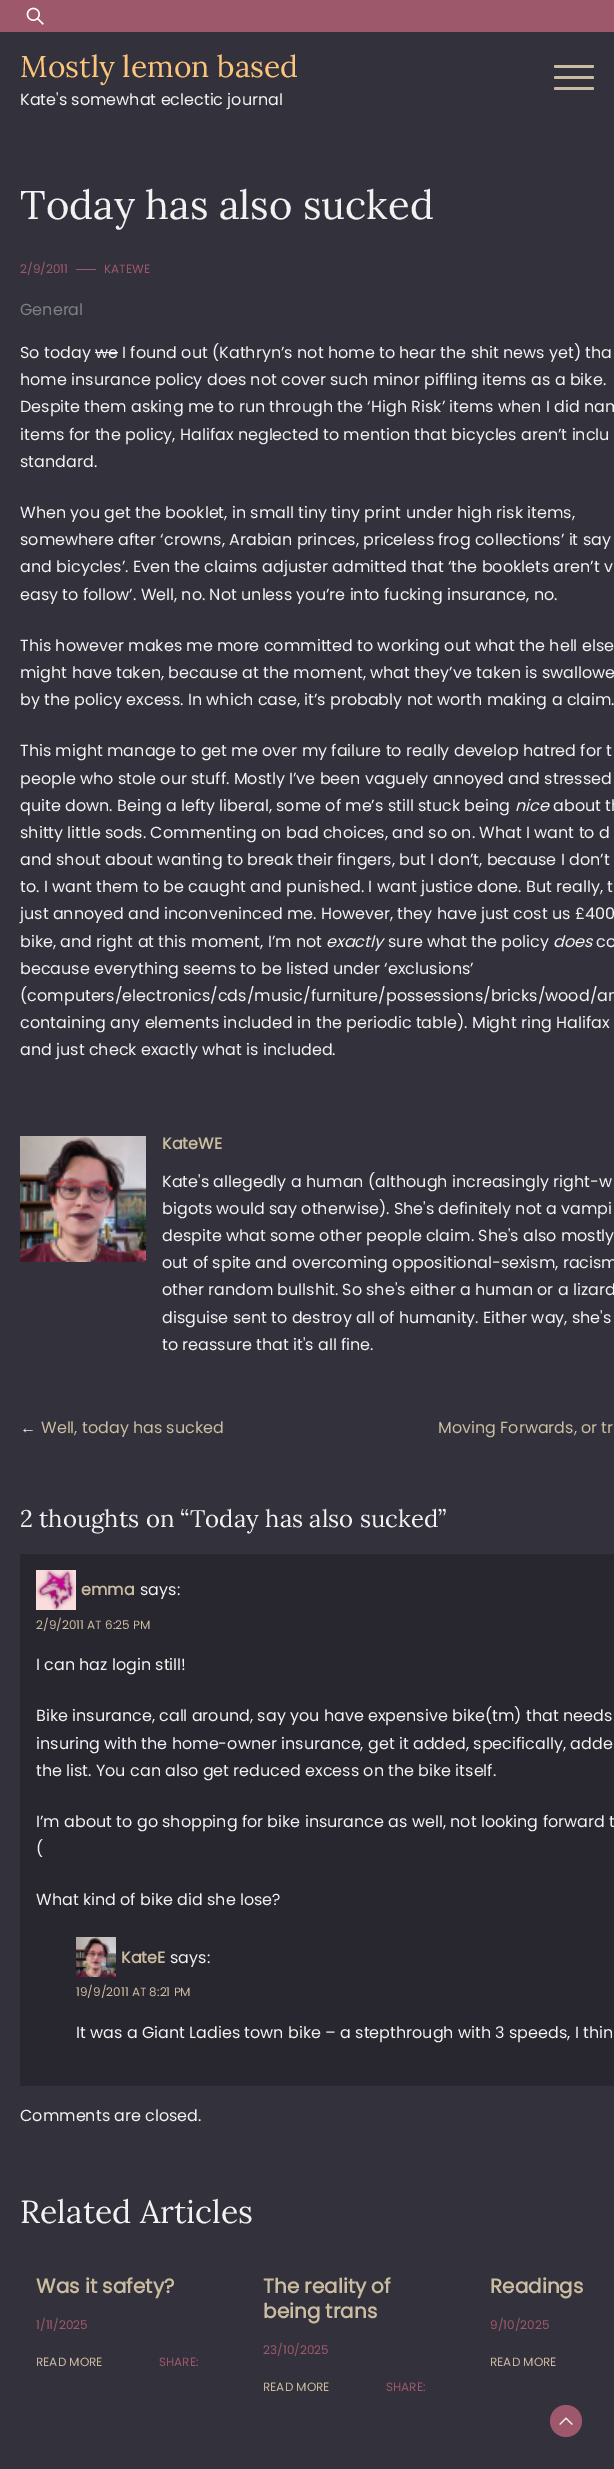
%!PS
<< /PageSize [614 2469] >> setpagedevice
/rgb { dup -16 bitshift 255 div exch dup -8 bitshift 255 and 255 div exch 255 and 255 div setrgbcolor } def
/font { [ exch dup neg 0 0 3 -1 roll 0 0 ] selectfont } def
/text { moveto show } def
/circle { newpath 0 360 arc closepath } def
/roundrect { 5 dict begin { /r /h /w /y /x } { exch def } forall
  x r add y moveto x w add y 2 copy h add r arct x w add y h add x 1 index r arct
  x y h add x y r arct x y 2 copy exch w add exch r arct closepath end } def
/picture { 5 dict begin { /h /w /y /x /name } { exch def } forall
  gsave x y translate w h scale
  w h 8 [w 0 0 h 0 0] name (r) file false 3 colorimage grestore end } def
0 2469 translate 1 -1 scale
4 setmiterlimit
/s1 { /Lora-Regular 30 font 16#FDC57B rgb } def
/s2 { /Poppins-Regular 16 font 16#F2F2F2 rgb } def
/s3 { /Lora-Regular 40 font 16#F2F2F2 rgb } def
/s4 { /Poppins-Regular 12 font 16#9E586B rgb } def
/s5 { /Poppins-Regular 16 font 16#7C8182 rgb } def
/s6 { /Poppins-Italic 16 font 16#F2F2F2 rgb } def
/s7 { /Poppins-Bold 16 font 16#CABCA0 rgb } def
/s8 { /LiberationSerif-Regular 16 font 16#F2F2F2 rgb } def
/s9 { /Poppins-Regular 16 font 16#CABCA0 rgb } def
/s10 { /Lora-Regular 24 font 16#F2F2F2 rgb } def
/s11 { /Poppins-Regular 12 font 16#CABCA0 rgb } def
/s12 { /Lora-Regular 32 font 16#F2F2F2 rgb } def
/s13 { /Poppins-Bold 20 font 16#CABCA0 rgb } def
16#33313B rgb
0 0 614 2469 rectfill
16#9E586B rgb
0 0 614 32 rectfill
(pic1.raw) 26 7 18 18 picture
s1
(Mostly lemon based) 20 77 text
s2
(Kate's somewhat eclectic journal) 20 105 text
16#CABCA0 rgb
554 65 40 3 1.5 roundrect fill
554 76 40 3 1.5 roundrect fill
554 87 40 3 1.5 roundrect fill
s3
(Today has also sucked) 20 219 text
s4
(2/9/2011) 20 273 text
76 269 20 1 rectfill
(KATEWE) 104 273 text
s5
(General) 20 315 text
s2
(So today we I found out \(Kathryn’s not home to hear the shit news yet\) tha) 20 358 text
95 352 23 1 rectfill
(home insurance policy does not cover such minor piffling items as a bike.) 20 385 text
(Despite them asking me to run through the ‘High Risk’ items when I did nam) 20 412 text
(items for the policy, Halifax neglected to mention that bicycles aren’t inclu) 20 440 text
(standard.) 20 467 text
(When you get the booklet, in small tiny tiny print under high risk items,) 20 518 text
(somewhere after ‘crowns, Arabian princes, priceless frog collections’ it say) 20 545 text
(and bicycles’. Even the claims adjuster admitted that ‘the booklets aren’t v) 20 572 text
(easy to follow’. Well, no. Not unless you’re into fucking insurance, no.) 20 600 text
(This however makes me more committed to working out what the hell else) 20 651 text
(might have taken, because at the moment, what they’ve taken is swallowe) 20 678 text
(by the policy excess. In which case, it’s probably not worth making a claim.) 20 705 text
(This might manage to get me over my failure to really develop hatred for t) 20 756 text
(people who stole our stuff. Mostly I’ve been vaguely annoyed and stressed) 20 784 text
(quite down. Being a lefty liberal, some of me’s still stuck being) 20 811 text
s6
(nice) 515 811 text
s2
(about th) 553 811 text
(shitty little sods. Commenting on bad choices, and so on. What I want to d) 20 838 text
(and shout about wanting to break their fingers, but I don’t, because I don’t) 20 865 text
(to. I want them to be caught and punished. I want justice done. But really, t) 20 892 text
(just annoyed and inconveninced me. However, they have just cost us £400) 20 919 text
(bike, and right at this moment, I’m not) 20 947 text
s6
(exactly) 326 947 text
s2
(sure what the policy) 388 947 text
s6
(does) 553 947 text
s2
(co) 596 947 text
(because everything seems to be listed under ‘exclusions’) 20 974 text
(\(computers/electronics/cds/music/furniture/possessions/bricks/wood/an) 20 1001 text
(containing any elements included in the periodic table\). Might ring Halifax) 20 1028 text
(and just check exactly what is included.) 20 1055 text
(pic2.raw) 20 1136 126 126 picture
s7
(KateWE) 162 1149 text
s2
(Kate's allegedly a human \(although increasingly right-w) 162 1187 text
(bigots would say otherwise\). She's definitely not a vampi) 162 1214 text
(despite what some other people claim. She's also mostly) 162 1241 text
(out of spite and overcoming oppositional-sexism, racism) 162 1268 text
(other random bullshit. So she's either a human or a lizard) 162 1295 text
(disguise sent to destroy all of humanity. Either way, she's) 162 1323 text
(to reassure that it's all fine.) 162 1350 text
s8
(←) 20 1433 text
s9
(Well, today has sucked) 41 1433 text
(Moving Forwards, or tr) 438 1433 text
s10
(2 thoughts on “Today has also sucked”) 20 1527 text
16#28262E rgb
20 1554 594 532 rectfill
(pic3.raw) 36 1570 40 40 picture
s7
(emma) 81 1595 text
s2
(says:) 140 1595 text
s11
(2/9/2011 AT 6:25 PM) 36 1629 text
s2
(I can haz login still!) 36 1670 text
(Bike insurance, call around, say you have expensive bike\(tm\) that needs) 36 1721 text
(insuring with the home-owner insurance, get it added, specifically, adde) 36 1749 text
(the list. You can also get reduced excess on the bike itself.) 36 1776 text
(I’m about to go shopping for bike insurance as well, not looking forward t) 36 1827 text
(\() 36 1854 text
(What kind of bike did she lose?) 36 1905 text
(pic4.raw) 76 1937 40 40 picture
s7
(KateE) 121 1963 text
s2
(says:) 170 1963 text
s11
(19/9/2011 AT 8:21 PM) 76 1996 text
s2
(It was a Giant Ladies town bike – a stepthrough with 3 speeds, I thin) 76 2038 text
(Comments are closed.) 20 2121 text
s12
(Related Articles) 20 2223 text
s13
(Was it safety?) 36 2293 text
s4
(1/11/2025) 36 2329 text
s11
(READ MORE) 36 2366 text
s4
(SHARE:) 159 2366 text
s13
(The reality of) 263 2293 text
(being trans) 263 2318 text
s4
(23/10/2025) 263 2354 text
s11
(READ MORE) 263 2391 text
s4
(SHARE:) 386 2391 text
s13
(Readings) 490 2293 text
s4
(9/10/2025) 490 2329 text
s11
(READ MORE) 490 2366 text
16#9E586B rgb
566 2421 16 circle fill
(pic5.raw) 559 2417 14 8 picture
showpage
